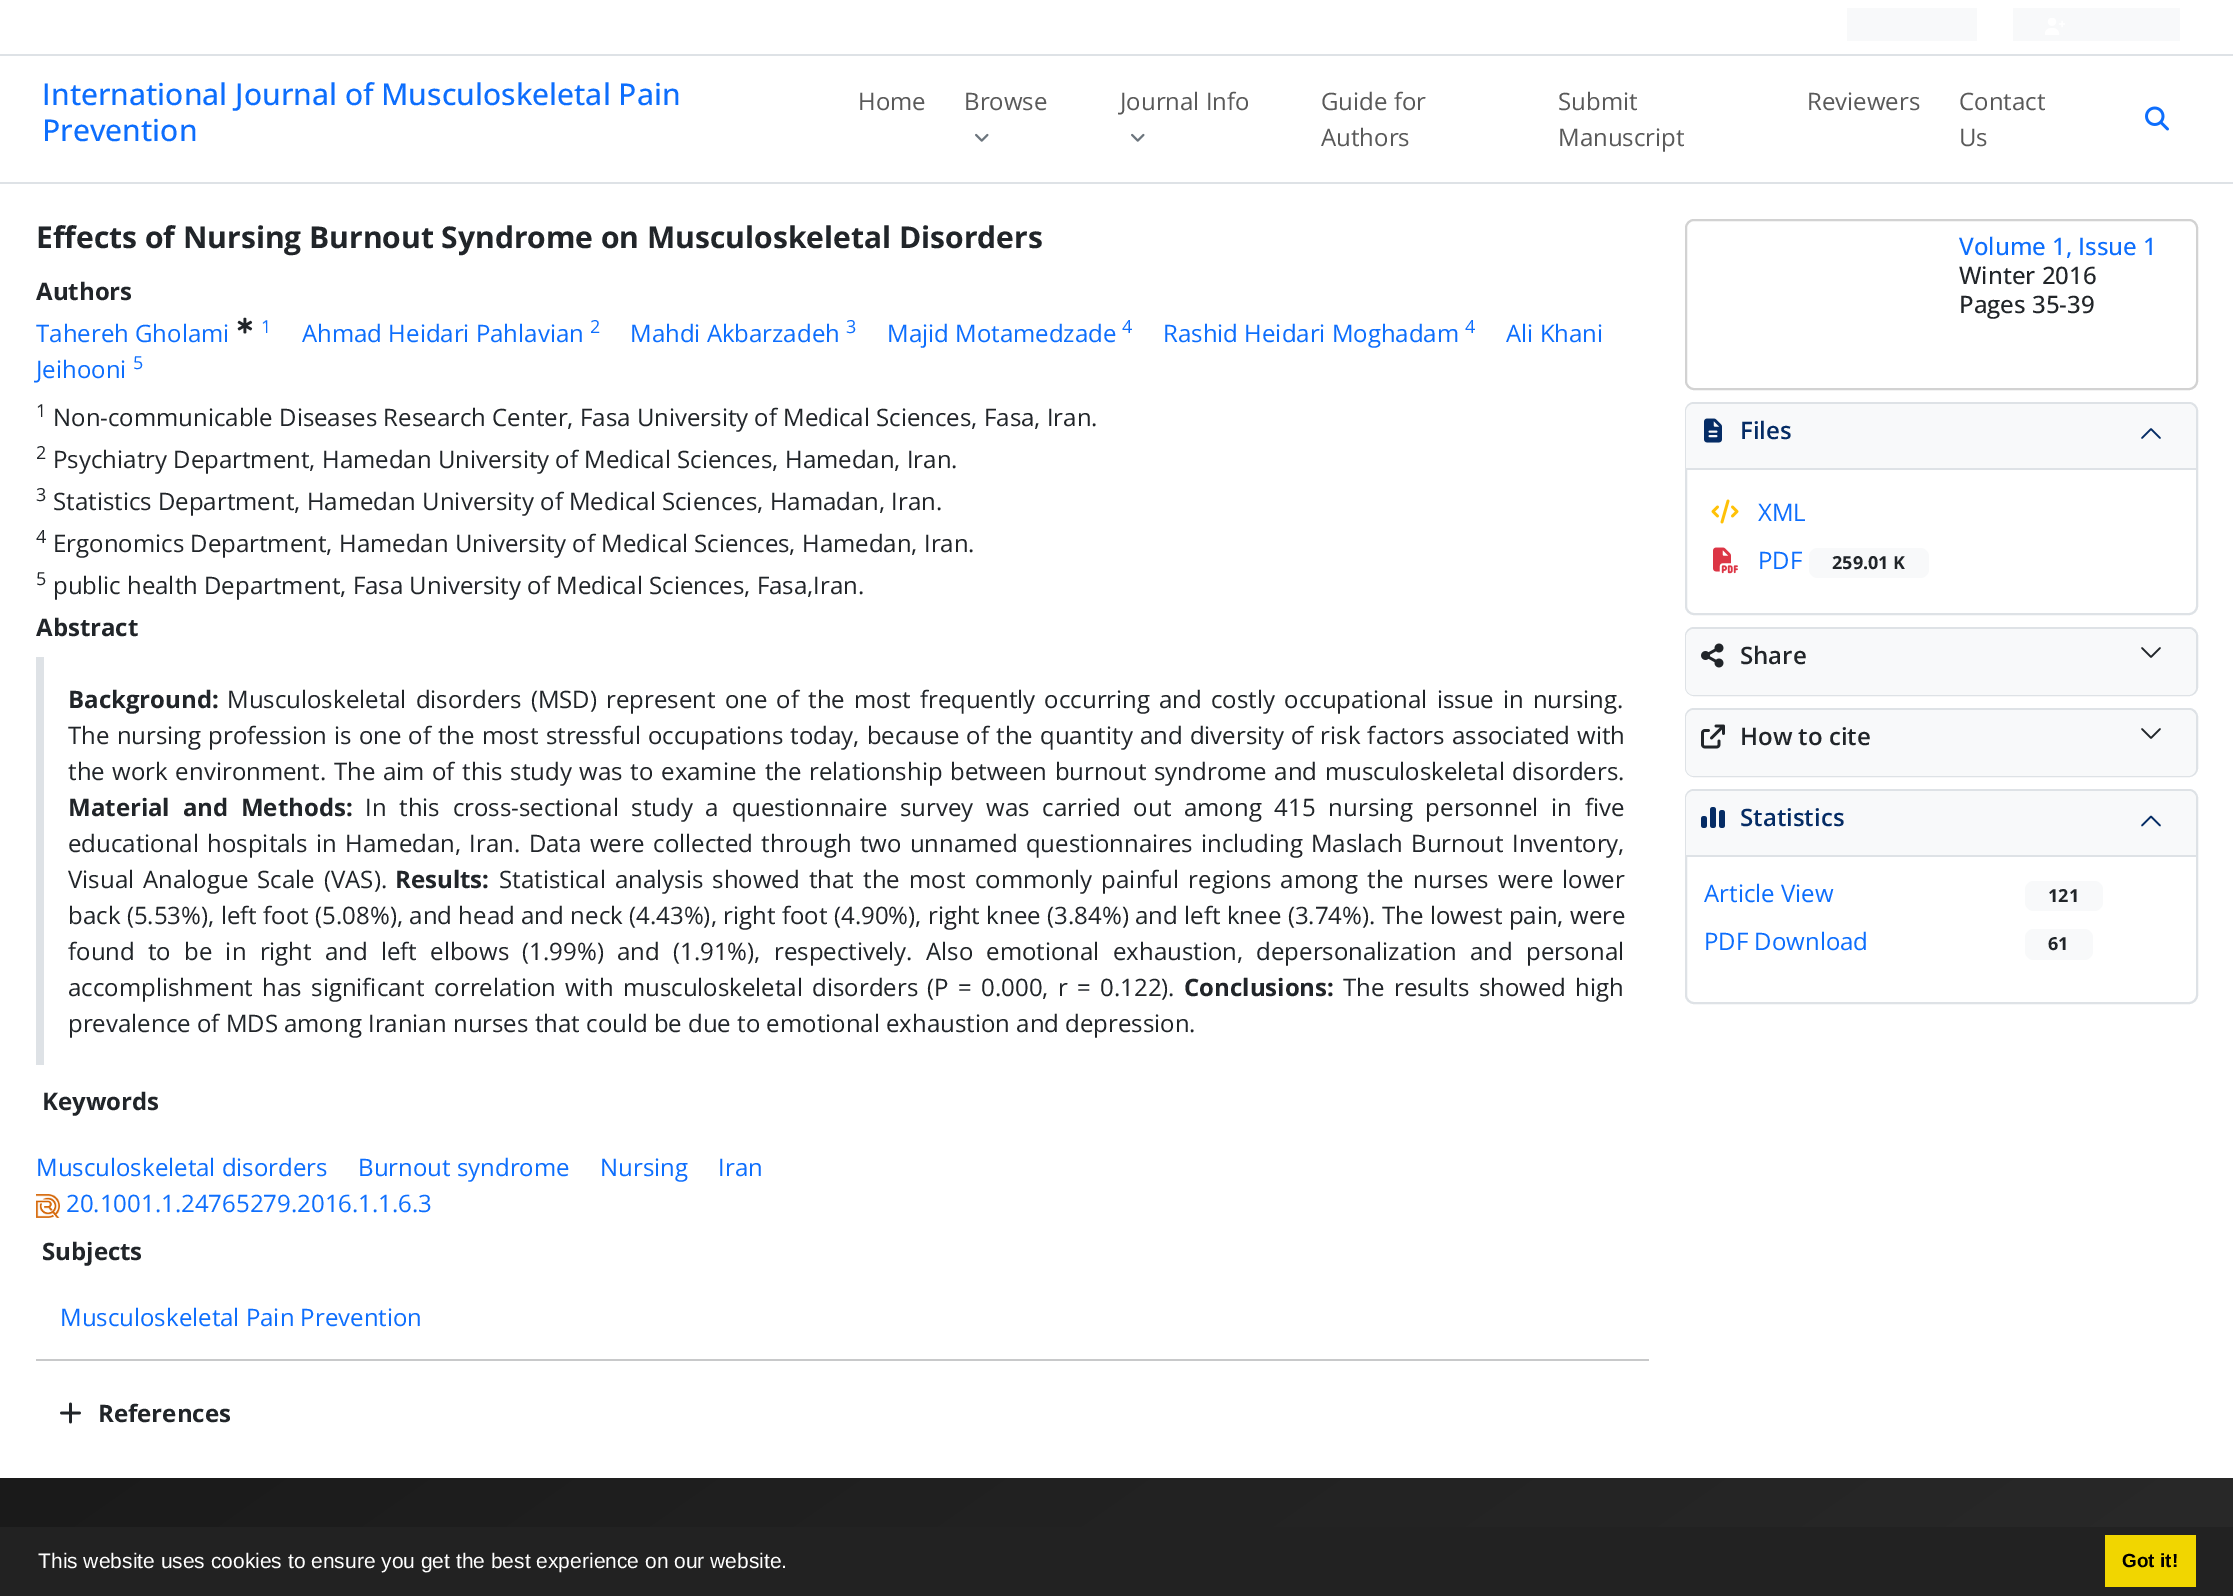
%!PS
<< /PageSize [2233 1596] >> setpagedevice
/rgb { dup -16 bitshift 255 div exch dup -8 bitshift 255 and 255 div exch 255 and 255 div setrgbcolor } def
/font { [ exch dup neg 0 0 3 -1 roll 0 0 ] selectfont } def
/text { moveto show } def
/roundrect { 5 dict begin { /r /h /w /y /x } { exch def } forall
  x r add y moveto x w add y 2 copy h add r arct x w add y h add x 1 index r arct
  x y h add x y r arct x y 2 copy exch w add exch r arct closepath end } def
/picture { 5 dict begin { /h /w /y /x /name } { exch def } forall
  gsave x y translate w h scale
  w h 8 [w 0 0 h 0 0] name (r) file false 3 colorimage grestore end } def
0 1596 translate 1 -1 scale
4 setmiterlimit
/s1 { /OpenSans-Medium 30 font 16#0D6EFD rgb } def
/s2 { /OpenSans-Regular 24 font 16#595959 rgb } def
/s3 { /OpenSans-Bold 30 font 16#212529 rgb } def
/s4 { /OpenSans-Bold 24 font 16#212529 rgb } def
/s5 { /OpenSans-Regular 24 font 16#0D6EFD rgb } def
/s6 { /OpenSans-Regular 18 font 16#0D6EFD rgb } def
/s7 { /OpenSans-Regular 18 font 16#212529 rgb } def
/s8 { /OpenSans-Regular 24 font 16#212529 rgb } def
/s9 { /OpenSans-Medium 24 font 16#0D6EFD rgb } def
/s10 { /OpenSans-Medium 24 font 16#212529 rgb } def
/s11 { /OpenSans-SemiBold 24 font 16#052C65 rgb } def
/s12 { /OpenSans-Bold 18 font 16#212529 rgb } def
/s13 { /OpenSans-SemiBold 24 font 16#212529 rgb } def
/s14 { /LiberationSans-Regular 21 font 16#FFFFFF rgb } def
/s15 { /LiberationSans-Bold 19 font 16#000000 rgb } def
16#FFFFFF rgb
0 0 2233 1596 rectfill
16#F8F9FA rgb
1847 8 130 33 rectfill
2013 8 167 33 rectfill
(pic1.raw) 2045 18 20 17 picture
16#DEE2E6 rgb
0 54 2233 2 rectfill
0 182 2233 2 rectfill
s1
(International Journal of Musculoskeletal Pain) 42 105 text
(Prevention) 42 141 text
s2
(Home) 858 110 text
(Browse) 964 110 text
(pic2.raw) 975 133 14 9 picture
(Journal Info) 1120 110 text
(pic2.raw) 1131 133 14 9 picture
(Guide for) 1321 110 text
(Authors) 1321 146 text
(Submit) 1558 110 text
(Manuscript) 1558 146 text
(Reviewers) 1807 110 text
(Contact) 1959 110 text
(Us) 1959 146 text
(pic3.raw) 2145 106 24 25 picture
s3
(Effects of Nursing Burnout Syndrome on Musculoskeletal Disorders) 36 248 text
s4
(Authors) 36 300 text
s5
(Tahereh Gholami) 36 342 text
(pic4.raw) 237 317 16 17 picture
s6
(1) 261 333 text
s5
(Ahmad Heidari Pahlavian) 302 342 text
s6
(2) 590 333 text
s5
(Mahdi Akbarzadeh) 630 342 text
s6
(3) 846 333 text
s5
(Majid Motamedzade) 887 342 text
s6
(4) 1122 333 text
s5
(Rashid Heidari Moghadam) 1163 342 text
s6
(4) 1465 333 text
s5
(Ali Khani) 1506 342 text
(Jeihooni) 36 378 text
s6
(5) 133 369 text
s7
(1) 36 417 text
s8
(Non-communicable Diseases Research Center, Fasa University of Medical Sciences, Fasa, Iran.) 53 426 text
s7
(2) 36 459 text
s8
(Psychiatry Department, Hamedan University of Medical Sciences, Hamedan, Iran.) 53 468 text
s7
(3) 36 501 text
s8
(Statistics Department, Hamedan University of Medical Sciences, Hamadan, Iran.) 53 510 text
s7
(4) 36 543 text
s8
(Ergonomics Department, Hamedan University of Medical Sciences, Hamedan, Iran.) 53 552 text
s7
(5) 36 585 text
s8
(public health Department, Fasa University of Medical Sciences, Fasa,Iran.) 53 594 text
s4
(Abstract) 36 636 text
16#DEE2E6 rgb
36 657 8 408 rectfill
s4
(Background:) 68 708 text
/OpenSans-Regular 24 font
227 708 moveto 2.9 0 32 (Musculoskeletal disorders \(MSD\) represent one of the most frequently occurring and costly occupational issue in nursing.) widthshow
68 744 moveto 0.9 0 32 (The nursing profession is one of the most stressful occupations today, because of the quantity and diversity of risk factors associated with) widthshow
68 780 moveto 1.4 0 32 (the work environment. The aim of this study was to examine the relationship between burnout syndrome and musculoskeletal disorders.) widthshow
/OpenSans-Bold 24 font
68 816 moveto 6.5 0 32 (Material and Methods:) widthshow
/OpenSans-Regular 24 font
365 816 moveto 6.5 0 32 (In this cross-sectional study a questionnaire survey was carried out among 415 nursing personnel in five) widthshow
68 852 moveto 2.1 0 32 (educational hospitals in Hamedan, Iran. Data were collected through two unnamed questionnaires including Maslach Burnout Inventory,) widthshow
68 888 moveto 2.9 0 32 (Visual Analogue Scale \(VAS\).) widthshow
s4
(Results:) 395 888 text
/OpenSans-Regular 24 font
499 888 moveto 2.9 0 32 (Statistical analysis showed that the most commonly painful regions among the nurses were lower) widthshow
68 924 moveto 0.2 0 32 (back \(5.53%\), left foot \(5.08%\), and head and neck \(4.43%\), right foot \(4.90%\), right knee \(3.84%\) and left knee \(3.74%\). The lowest pain, were) widthshow
68 960 moveto 7 0 32 (found to be in right and left elbows \(1.99%\) and \(1.91%\), respectively. Also emotional exhaustion, depersonalization and personal) widthshow
68 996 moveto 3.1 0 32 (accomplishment has significant correlation with musculoskeletal disorders \(P = 0.000, r = 0.122\).) widthshow
s4
(Conclusions:) 1184 996 text
/OpenSans-Regular 24 font
1343 996 moveto 3.1 0 32 (The results showed high) widthshow
(prevalence of MDS among Iranian nurses that could be due to emotional exhaustion and depression.) 68 1032 text
s4
(Keywords) 42 1110 text
s5
(Musculoskeletal disorders) 36 1176 text
(Burnout syndrome) 358 1176 text
(Nursing) 600 1176 text
(Iran) 718 1176 text
(pic5.raw) 36 1194 24 24 picture
(20.1001.1.24765279.2016.1.1.6.3) 66 1212 text
s4
(Subjects) 42 1260 text
s5
(Musculoskeletal Pain Prevention) 60 1326 text
16#C8C9CA rgb
36 1359 1613 2 rectfill
(pic6.raw) 60 1402 21 22 picture
s4
(References) 98 1422 text
16#D2D2D2 rgb
2 setlinewidth
1686 220 511 169 8 roundrect stroke
s9
(Volume 1, Issue 1) 1959 255 text
s10
(Winter 2016) 1959 284 text
(Pages 35-39) 1959 313 text
16#DEE2E6 rgb
1686 403 511 211 8 roundrect stroke
16#F8F9FA rgb
1694 404 moveto 2188 404 lineto 2192.5 404 2196 407.5 2196 412 curveto 2196 470 lineto 1686 470 lineto 1686 412 lineto 1686 407.5 1689.5 404 1694 404 curveto closepath fill
16#DEE2E6 rgb
1686 468 510 2 rectfill
(pic7.raw) 1704 418 18 25 picture
s11
(Files) 1740 439 text
1.5 setlinewidth
1 setlinecap
1 setlinejoin
2160 438 moveto 2151 429 lineto 2142 438 lineto stroke
(pic8.raw) 1711 499 28 25 picture
s5
(XML) 1758 521 text
(pic9.raw) 1713 547 25 27 picture
(PDF) 1758 569 text
16#F8F9FA rgb
1809 548 120 30 9 roundrect fill
s12
(259.01 K) 1832 569 text
16#DEE2E6 rgb
2 setlinewidth
0 setlinecap
0 setlinejoin
1686 628 511 67 8 roundrect stroke
16#F8F9FA rgb
1686 629 510 66 8 roundrect fill
(pic10.raw) 1701 643 23 25 picture
s13
(Share) 1740 664 text
1.5 setlinewidth
1 setlinecap
1 setlinejoin
2142 648 moveto 2151 657 lineto 2160 648 lineto stroke
16#DEE2E6 rgb
2 setlinewidth
0 setlinecap
0 setlinejoin
1686 709 511 67 8 roundrect stroke
16#F8F9FA rgb
1686 710 510 66 8 roundrect fill
(pic11.raw) 1701 724 24 25 picture
s13
(How to cite) 1740 745 text
1.5 setlinewidth
1 setlinecap
1 setlinejoin
2142 729 moveto 2151 738 lineto 2160 729 lineto stroke
16#DEE2E6 rgb
2 setlinewidth
0 setlinecap
0 setlinejoin
1686 790 511 213 8 roundrect stroke
16#F8F9FA rgb
1694 791 moveto 2188 791 lineto 2192.5 791 2196 794.5 2196 799 curveto 2196 857 lineto 1686 857 lineto 1686 799 lineto 1686 794.5 1689.5 791 1694 791 curveto closepath fill
16#DEE2E6 rgb
1686 855 510 2 rectfill
(pic12.raw) 1701 807 24 21 picture
s11
(Statistics) 1740 826 text
1.5 setlinewidth
1 setlinecap
1 setlinejoin
2160 825.5 moveto 2151 816.5 lineto 2142 825.5 lineto stroke
s5
(Article View) 1704 902 text
16#F8F9FA rgb
2025 881 78 30 9 roundrect fill
s12
(121) 2048 902 text
s5
(PDF Download) 1704 950 text
16#F8F9FA rgb
2025 929 68 31 9 roundrect fill
s12
(61) 2048 950 text
gsave 0 1478 moveto 2233 1478 lineto 2233 1527 lineto 0 1527 lineto closepath clip newpath
<< /ShadingType 2 /ColorSpace /DeviceRGB /Coords [639 1030 1594 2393] /Extend [true true] /Function << /FunctionType 2 /Domain [0 1] /C0 [0.102 0.102 0.102] /C1 [0.176 0.176 0.176] /N 1 >> >> shfill grestore
16#222222 rgb
0 1527 2233 69 rectfill
s14
(This website uses cookies to ensure you get the best experience on our website.) 38 1568 text
16#F1D600 rgb
2105 1535 91 52 rectfill
s15
(Got it!) 2122 1567 text
showpage
